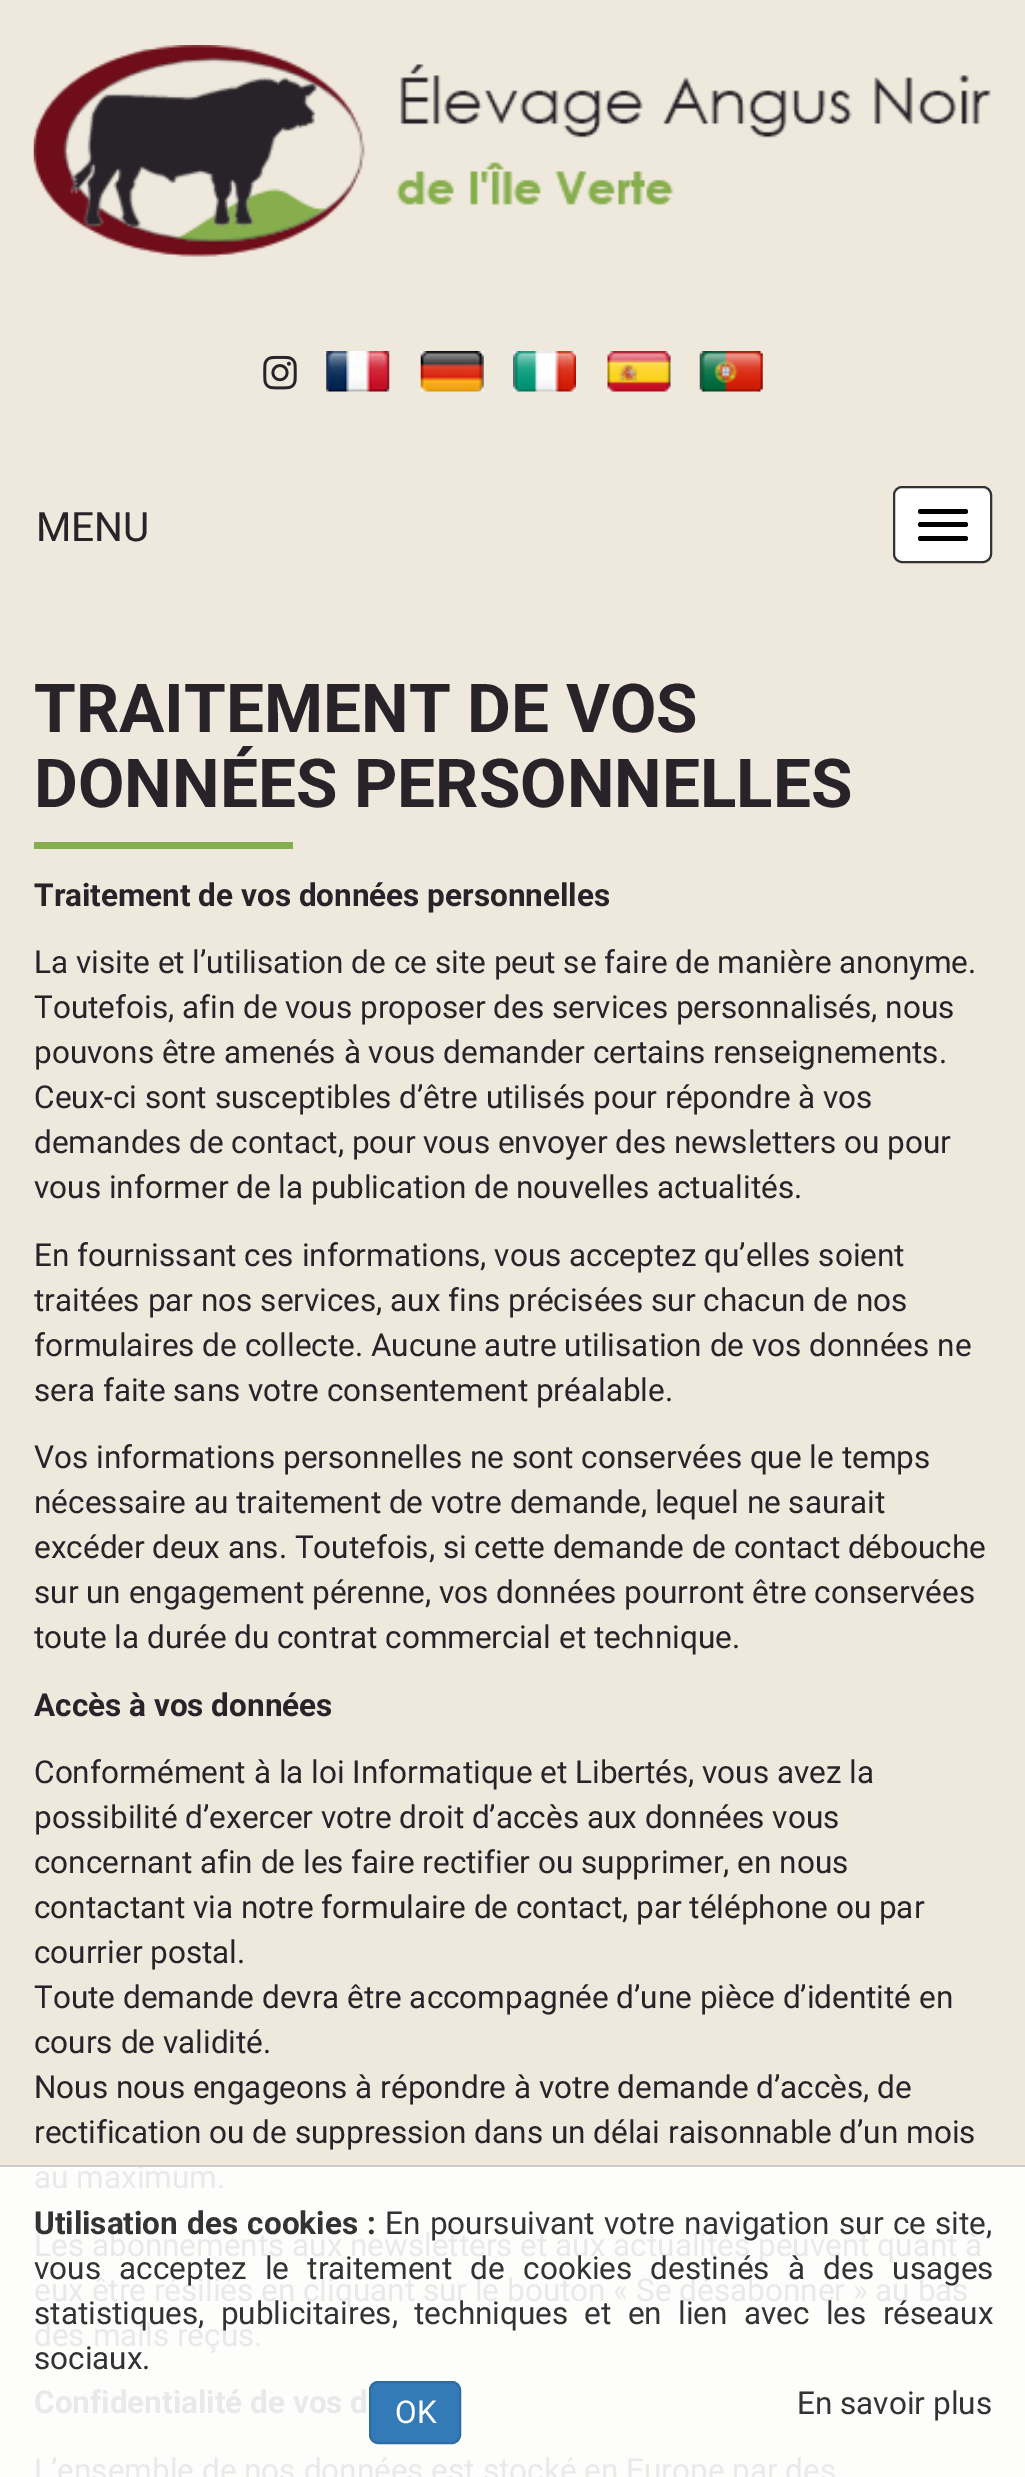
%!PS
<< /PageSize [1025 2477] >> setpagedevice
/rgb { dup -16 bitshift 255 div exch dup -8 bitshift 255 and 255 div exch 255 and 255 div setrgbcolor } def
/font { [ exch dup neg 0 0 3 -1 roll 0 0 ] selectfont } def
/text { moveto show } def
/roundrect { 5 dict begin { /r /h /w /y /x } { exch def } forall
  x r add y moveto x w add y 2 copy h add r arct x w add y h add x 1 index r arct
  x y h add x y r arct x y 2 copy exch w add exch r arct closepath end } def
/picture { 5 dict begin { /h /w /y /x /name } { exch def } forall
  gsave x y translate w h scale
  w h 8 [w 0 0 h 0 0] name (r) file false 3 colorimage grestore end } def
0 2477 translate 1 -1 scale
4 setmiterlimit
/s1 { /Roboto-Regular 40.5 font 16#282329 rgb } def
/s2 { /Roboto-Bold 67.5 font 16#282329 rgb } def
/s3 { /Roboto-Bold 31.5 font 16#282329 rgb } def
/s4 { /Roboto-Regular 31.5 font 16#282329 rgb } def
/s5 { /Roboto-Regular 31.5 font 16#EAE9EA rgb } def
/s6 { /Roboto-Bold 31.5 font 16#EAE9EA rgb } def
/s7 { /Roboto-Regular 31.5 font 16#333333 rgb } def
/s8 { /Roboto-Regular 31.5 font 16#FFFFFF rgb } def
16#EFE8DD rgb
0 0 1025 2477 rectfill
16#FDFDFC rgb
0 2167 1025 310 rectfill
(pic1.raw) 33 45 958 212 picture
(pic2.raw) 263 355 34 35 picture
(pic3.raw) 326 351 64 41 picture
(pic4.raw) 420 351 64 41 picture
(pic5.raw) 513 351 63 41 picture
(pic6.raw) 607 351 64 41 picture
(pic7.raw) 699 351 64 41 picture
s1
(MENU) 36 541 text
16#FFFFFF rgb
894 487 97 75 8 roundrect gsave fill grestore
16#333333 rgb
2 setlinewidth
stroke
16#000000 rgb
918 509 50 5 2.5 roundrect fill
918 522 50 5 2.5 roundrect fill
918 536 50 5 2.5 roundrect fill
s2
(TRAITEMENT DE VOS) 34 732 text
(DONNÉES PERSONNELLES) 34 807 text
16#86AE4D rgb
34 842 259 7 rectfill
s3
(Traitement de vos données personnelles) 34 906 text
s4
(La visite et l’utilisation de ce site peut se faire de manière anonyme.) 34 973 text
(Toutefois, afin de vous proposer des services personnalisés, nous) 34 1018 text
(pouvons être amenés à vous demander certains renseignements.) 34 1063 text
(Ceux-ci sont susceptibles d’être utilisés pour répondre à vos) 34 1108 text
(demandes de contact, pour vous envoyer des newsletters ou pour) 34 1153 text
(vous informer de la publication de nouvelles actualités.) 34 1198 text
(En fournissant ces informations, vous acceptez qu’elles soient) 34 1266 text
(traitées par nos services, aux fins précisées sur chacun de nos) 34 1311 text
(formulaires de collecte. Aucune autre utilisation de vos données ne) 34 1356 text
(sera faite sans votre consentement préalable.) 34 1401 text
(Vos informations personnelles ne sont conservées que le temps) 34 1468 text
(nécessaire au traitement de votre demande, lequel ne saurait) 34 1513 text
(excéder deux ans. Toutefois, si cette demande de contact débouche) 34 1558 text
(sur un engagement pérenne, vos données pourront être conservées) 34 1603 text
(toute la durée du contrat commercial et technique.) 34 1648 text
s3
(Accès à vos données) 34 1716 text
s4
(Conformément à la loi Informatique et Libertés, vous avez la) 34 1783 text
(possibilité d’exercer votre droit d’accès aux données vous) 34 1828 text
(concernant afin de les faire rectifier ou supprimer, en nous) 34 1873 text
(contactant via notre formulaire de contact, par téléphone ou par) 34 1918 text
(courrier postal.) 34 1963 text
(Toute demande devra être accompagnée d’une pièce d’identité en) 34 2008 text
(cours de validité.) 34 2053 text
(Nous nous engageons à répondre à votre demande d’accès, de) 34 2098 text
(rectification ou de suppression dans un délai raisonnable d’un mois) 34 2143 text
s5
(au maximum.) 34 2188 text
(Les abonnements aux newsletters et aux actualités peuvent quant à) 34 2256 text
(eux être résiliés en cliquant sur le bouton « Se désabonner » au bas) 34 2301 text
(des mails reçus.) 34 2346 text
s6
(Confidentialité de vos d) 34 2413 text
s5
(L’ensemble de nos données est stocké en Europe par des) 34 2481 text
16#CCCCCC rgb
0 2165 1025 2 rectfill
/Roboto-Bold 31.5 font
16#333333 rgb
34 2234 moveto 1.5 0 32 (Utilisation des cookies :) widthshow
/Roboto-Regular 31.5 font
385 2234 moveto 1.5 0 32 (En poursuivant votre navigation sur ce site,) widthshow
34 2279 moveto 10.5 0 32 (vous acceptez le traitement de cookies destinés à des usages) widthshow
34 2324 moveto 8.5 0 32 (statistiques, publicitaires, techniques et en lien avec les réseaux) widthshow
(sociaux.) 34 2369 text
16#337AB7 rgb
370 2382 90 61 8 roundrect gsave fill grestore
16#2E6DA4 rgb
stroke
s8
(OK) 395 2423 text
s7
(En savoir plus) 797 2414 text
showpage
